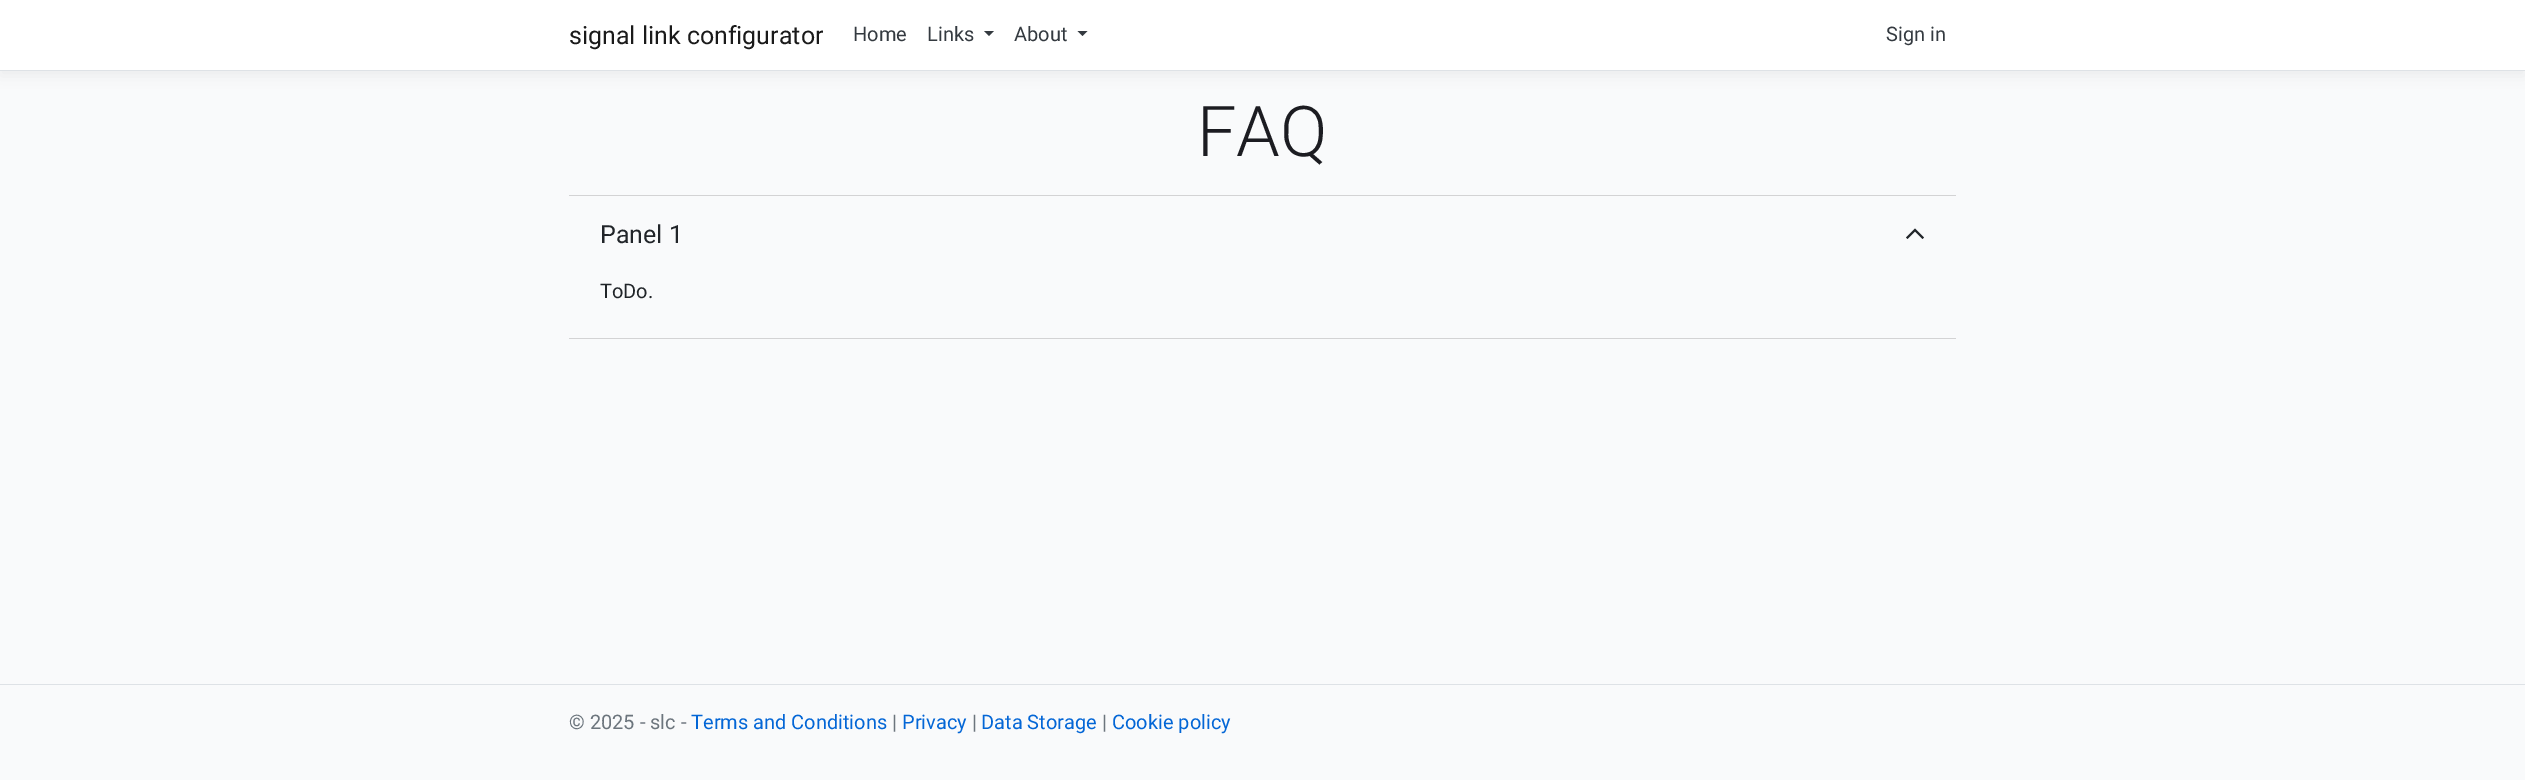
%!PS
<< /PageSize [2525 780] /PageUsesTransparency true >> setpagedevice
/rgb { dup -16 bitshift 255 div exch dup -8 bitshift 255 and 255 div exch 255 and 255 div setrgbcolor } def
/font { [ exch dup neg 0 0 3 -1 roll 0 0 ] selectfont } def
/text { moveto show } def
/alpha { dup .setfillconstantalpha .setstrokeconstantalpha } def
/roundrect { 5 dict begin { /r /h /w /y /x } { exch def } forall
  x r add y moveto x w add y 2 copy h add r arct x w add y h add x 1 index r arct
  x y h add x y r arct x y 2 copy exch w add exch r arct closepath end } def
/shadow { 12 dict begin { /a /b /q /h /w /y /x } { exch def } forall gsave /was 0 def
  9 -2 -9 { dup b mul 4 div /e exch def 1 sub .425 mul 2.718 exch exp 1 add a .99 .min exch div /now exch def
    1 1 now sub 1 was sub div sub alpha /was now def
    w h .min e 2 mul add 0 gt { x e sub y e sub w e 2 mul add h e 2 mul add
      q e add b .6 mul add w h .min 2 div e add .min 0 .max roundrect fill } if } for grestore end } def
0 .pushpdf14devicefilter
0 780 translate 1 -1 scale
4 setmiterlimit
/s1 { /Roboto-Regular 25 font 16#1A1A1A rgb } def
/s2 { /Roboto-Regular 20 font 16#343A40 rgb } def
/s3 { /Roboto-Light 70 font 16#1C1C21 rgb } def
/s4 { /Roboto-Regular 25 font 16#212529 rgb } def
/s5 { /Roboto-Regular 20 font 16#212529 rgb } def
/s6 { /Roboto-Regular 20 font 16#6C757D rgb } def
/s7 { /Roboto-Regular 20 font 16#0366D6 rgb } def
16#F9FAFB rgb
0 0 2525 780 rectfill
16#000000 rgb
0 5 2525 71 0 7.5 0.05 shadow
16#FFFFFF rgb
0 0 2525 70 rectfill
16#DEE2E6 rgb
0 70 2525 1 rectfill
s1
(signal link configurator) 569 44 text
s2
(Home) 853 41 text
(Links) 927 41 text
984 31 moveto 994 31 lineto 989 36 lineto closepath fill
(About) 1014 41 text
1077.5 31 moveto 1087.5 31 lineto 1082.5 36 lineto closepath fill
(Sign in) 1886 41 text
s3
(FAQ) 1197 156 text
16#D3D3D4 rgb
569 195 1387 1 rectfill
569 338 1387 1 rectfill
s4
(Panel 1) 600 243 text
1.9 setlinewidth
2 setlinecap
1907.5 237.5 moveto 1915 230 lineto 1922.5 237.5 moveto 1915 230 lineto stroke
s5
(ToDo.) 600 298 text
16#DEE2E6 rgb
0 684 2525 1 rectfill
s6
(© 2025 - slc -) 569 729 text
s7
(Terms and Conditions) 691 729 text
s6
(|) 892 729 text
s7
(Privacy) 902 729 text
s6
(|) 972 729 text
s7
(Data Storage) 981 729 text
s6
(|) 1102 729 text
s7
(Cookie policy) 1112 729 text
.poppdf14devicefilter showpage
